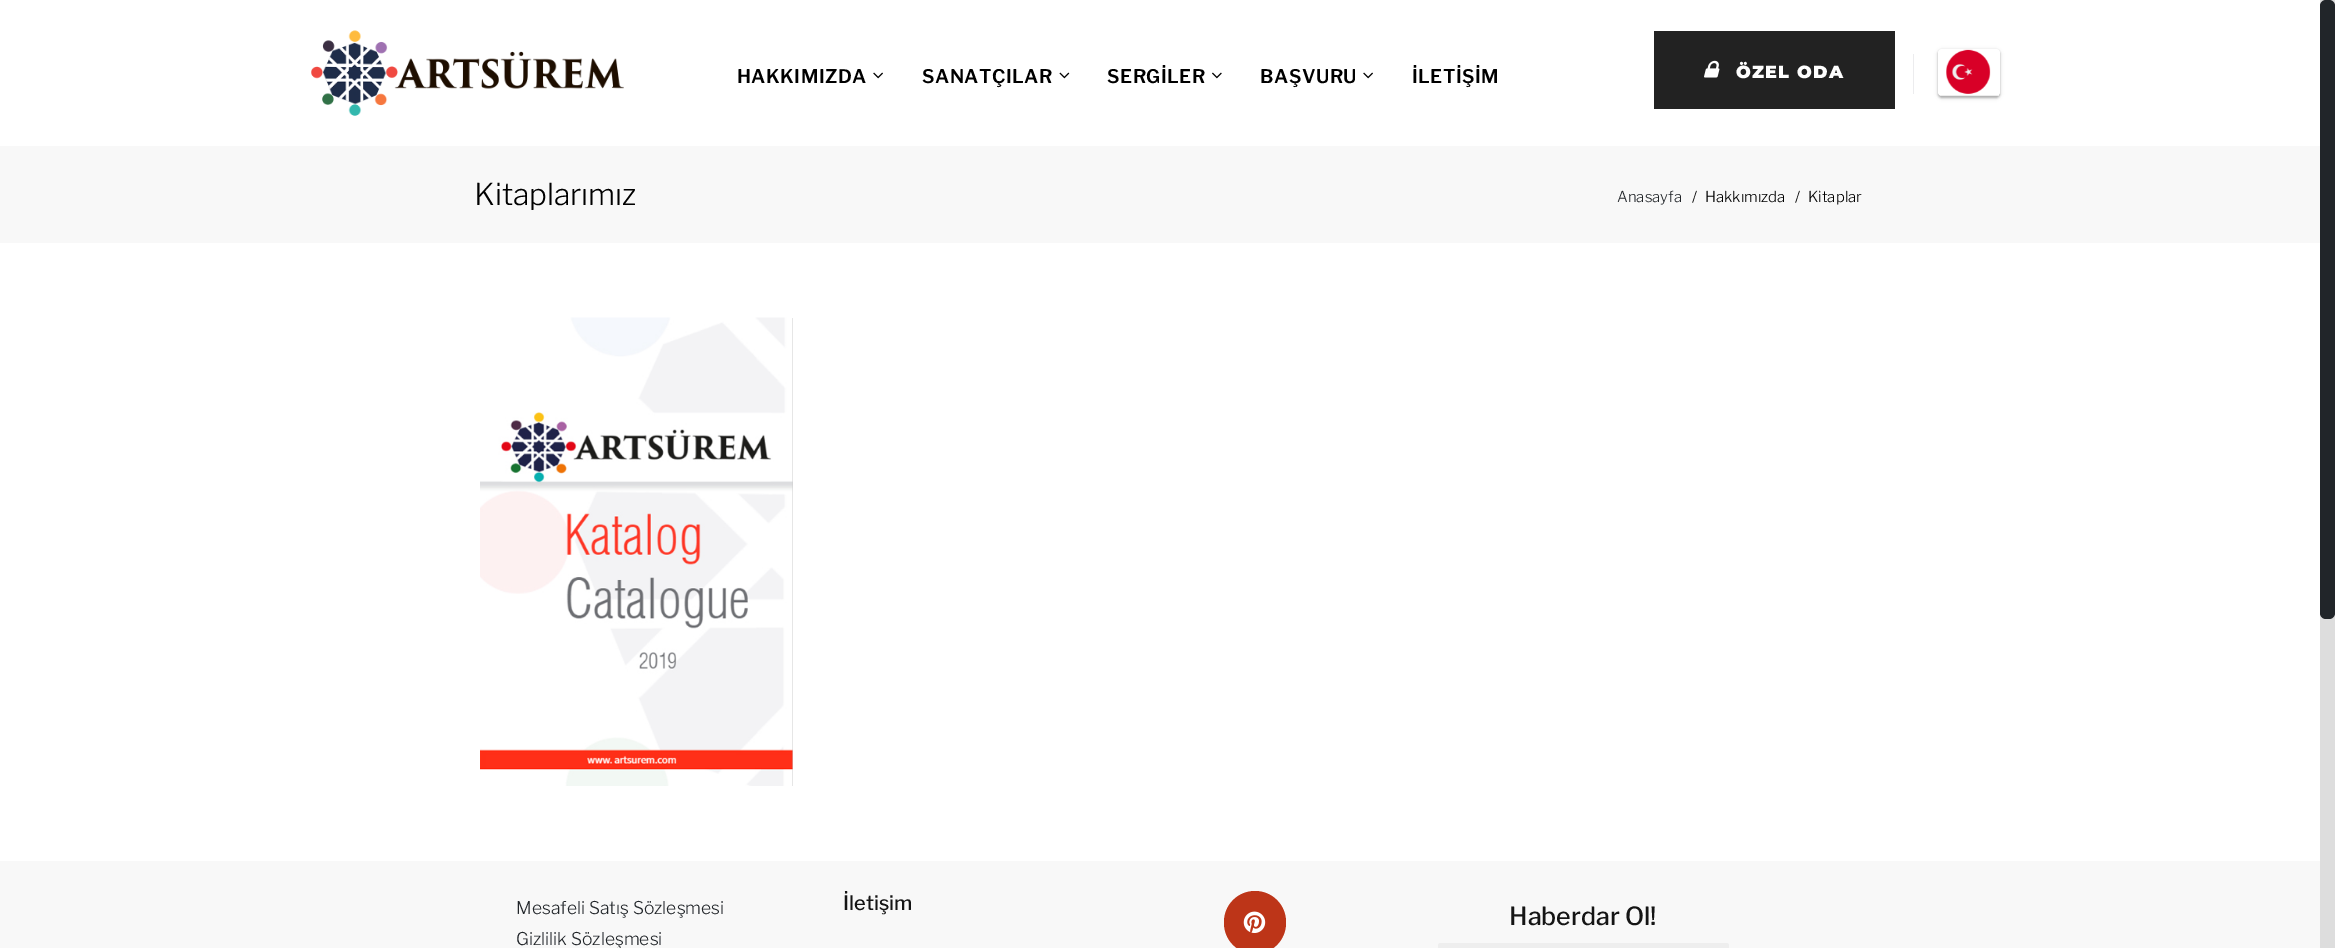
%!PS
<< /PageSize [2335 948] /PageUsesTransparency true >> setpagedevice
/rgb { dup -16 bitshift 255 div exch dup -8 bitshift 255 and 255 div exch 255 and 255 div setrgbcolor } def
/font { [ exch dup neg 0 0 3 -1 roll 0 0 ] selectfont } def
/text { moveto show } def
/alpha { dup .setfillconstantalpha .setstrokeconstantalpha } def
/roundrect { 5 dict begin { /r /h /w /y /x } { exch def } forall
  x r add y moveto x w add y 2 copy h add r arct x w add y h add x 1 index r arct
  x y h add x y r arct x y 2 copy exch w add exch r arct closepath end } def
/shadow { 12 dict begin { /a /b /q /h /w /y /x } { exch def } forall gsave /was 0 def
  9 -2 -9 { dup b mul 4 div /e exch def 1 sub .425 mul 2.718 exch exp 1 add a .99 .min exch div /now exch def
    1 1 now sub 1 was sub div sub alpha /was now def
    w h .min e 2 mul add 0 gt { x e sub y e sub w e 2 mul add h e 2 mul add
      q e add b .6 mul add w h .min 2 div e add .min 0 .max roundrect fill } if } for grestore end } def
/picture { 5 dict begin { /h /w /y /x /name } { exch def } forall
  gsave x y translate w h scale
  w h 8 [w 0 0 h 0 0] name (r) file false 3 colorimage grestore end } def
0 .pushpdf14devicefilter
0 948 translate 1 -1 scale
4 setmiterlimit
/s1 { /LibreFranklin-Light 30 font 16#000000 rgb } def
/s2 { /LibreFranklin-Light 15 font 16#212529 rgb } def
/s3 { /LibreFranklin-Light 15 font 16#000000 rgb } def
/s4 { /LibreFranklin-Light 17.5 font 16#212529 rgb } def
/s5 { /LibreFranklin-Medium 20 font 16#151515 rgb } def
/s6 { /LibreFranklin-Medium 25 font 16#151515 rgb } def
16#FFFFFF rgb
0 0 2335 948 rectfill
(pic1.raw) 311 30 313 86 picture
/LibreFranklin-SemiBold 18.75 font
16#000000 rgb
737 83 moveto 0.5 0 (HAKKIMIZDA) ashow
(pic2.raw) 873 72 10 7 picture
922 83 moveto 0.5 0 (SANATÇILAR) ashow
(pic3.raw) 1059 72 11 7 picture
1107 83 moveto 0.5 0 (SERGİLER) ashow
(pic4.raw) 1212 72 10 7 picture
1260 83 moveto 0.5 0 (BAŞVURU) ashow
(pic2.raw) 1363 72 10 7 picture
1412 83 moveto 0.5 0 (İLETİŞİM) ashow
16#222222 rgb
1654 31 241 78 rectfill
(pic5.raw) 1704 60 16 18 picture
/Montserrat-Black 17.5 font
16#FFFFFF rgb
1736 78 moveto 1.25 0 (ÖZEL ODA) ashow
16#ECECEE rgb
1913 54 1 40 rectfill
16#000000 rgb
1938 50 62 48 4 1 0.24 shadow
1938 50 62 48 4 2 0.12 shadow
16#FFFFFF rgb
1938 49 62 47 4 roundrect fill
16#ECECEC rgb
1940 95 59 1 rectfill
(pic6.raw) 1946 49 45 45 picture
16#F8F8F8 rgb
0 146 2320 97 rectfill
s1
(Kitaplarımız) 474 205 text
s2
(Anasayfa) 1617 202 text
s3
(/) 1692 202 text
(Hakkımızda) 1705 202 text
(/) 1795 202 text
(Kitaplar) 1808 202 text
16#CCCCCC rgb
792 318 1 468 rectfill
(pic7.raw) 480 317 313 469 picture
16#F8F8F8 rgb
0 861 2320 87 rectfill
s4
(Mesafeli Satış Sözleşmesi) 516 914 text
(Gizlilik Sözleşmesi) 516 945 text
s5
(İletişim) 843 910 text
16#BD3518 rgb
1224 891 62 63 31 roundrect fill
(pic8.raw) 1243 911 23 22 picture
s6
(Haberdar Ol!) 1509 925 text
16#EEEEEE rgb
1438 943 291 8 2.5 roundrect fill
16#DDDDDD rgb
2320 0 15 948 rectfill
16#212529 rgb
2320 0 15 619 6 roundrect fill
.poppdf14devicefilter showpage
